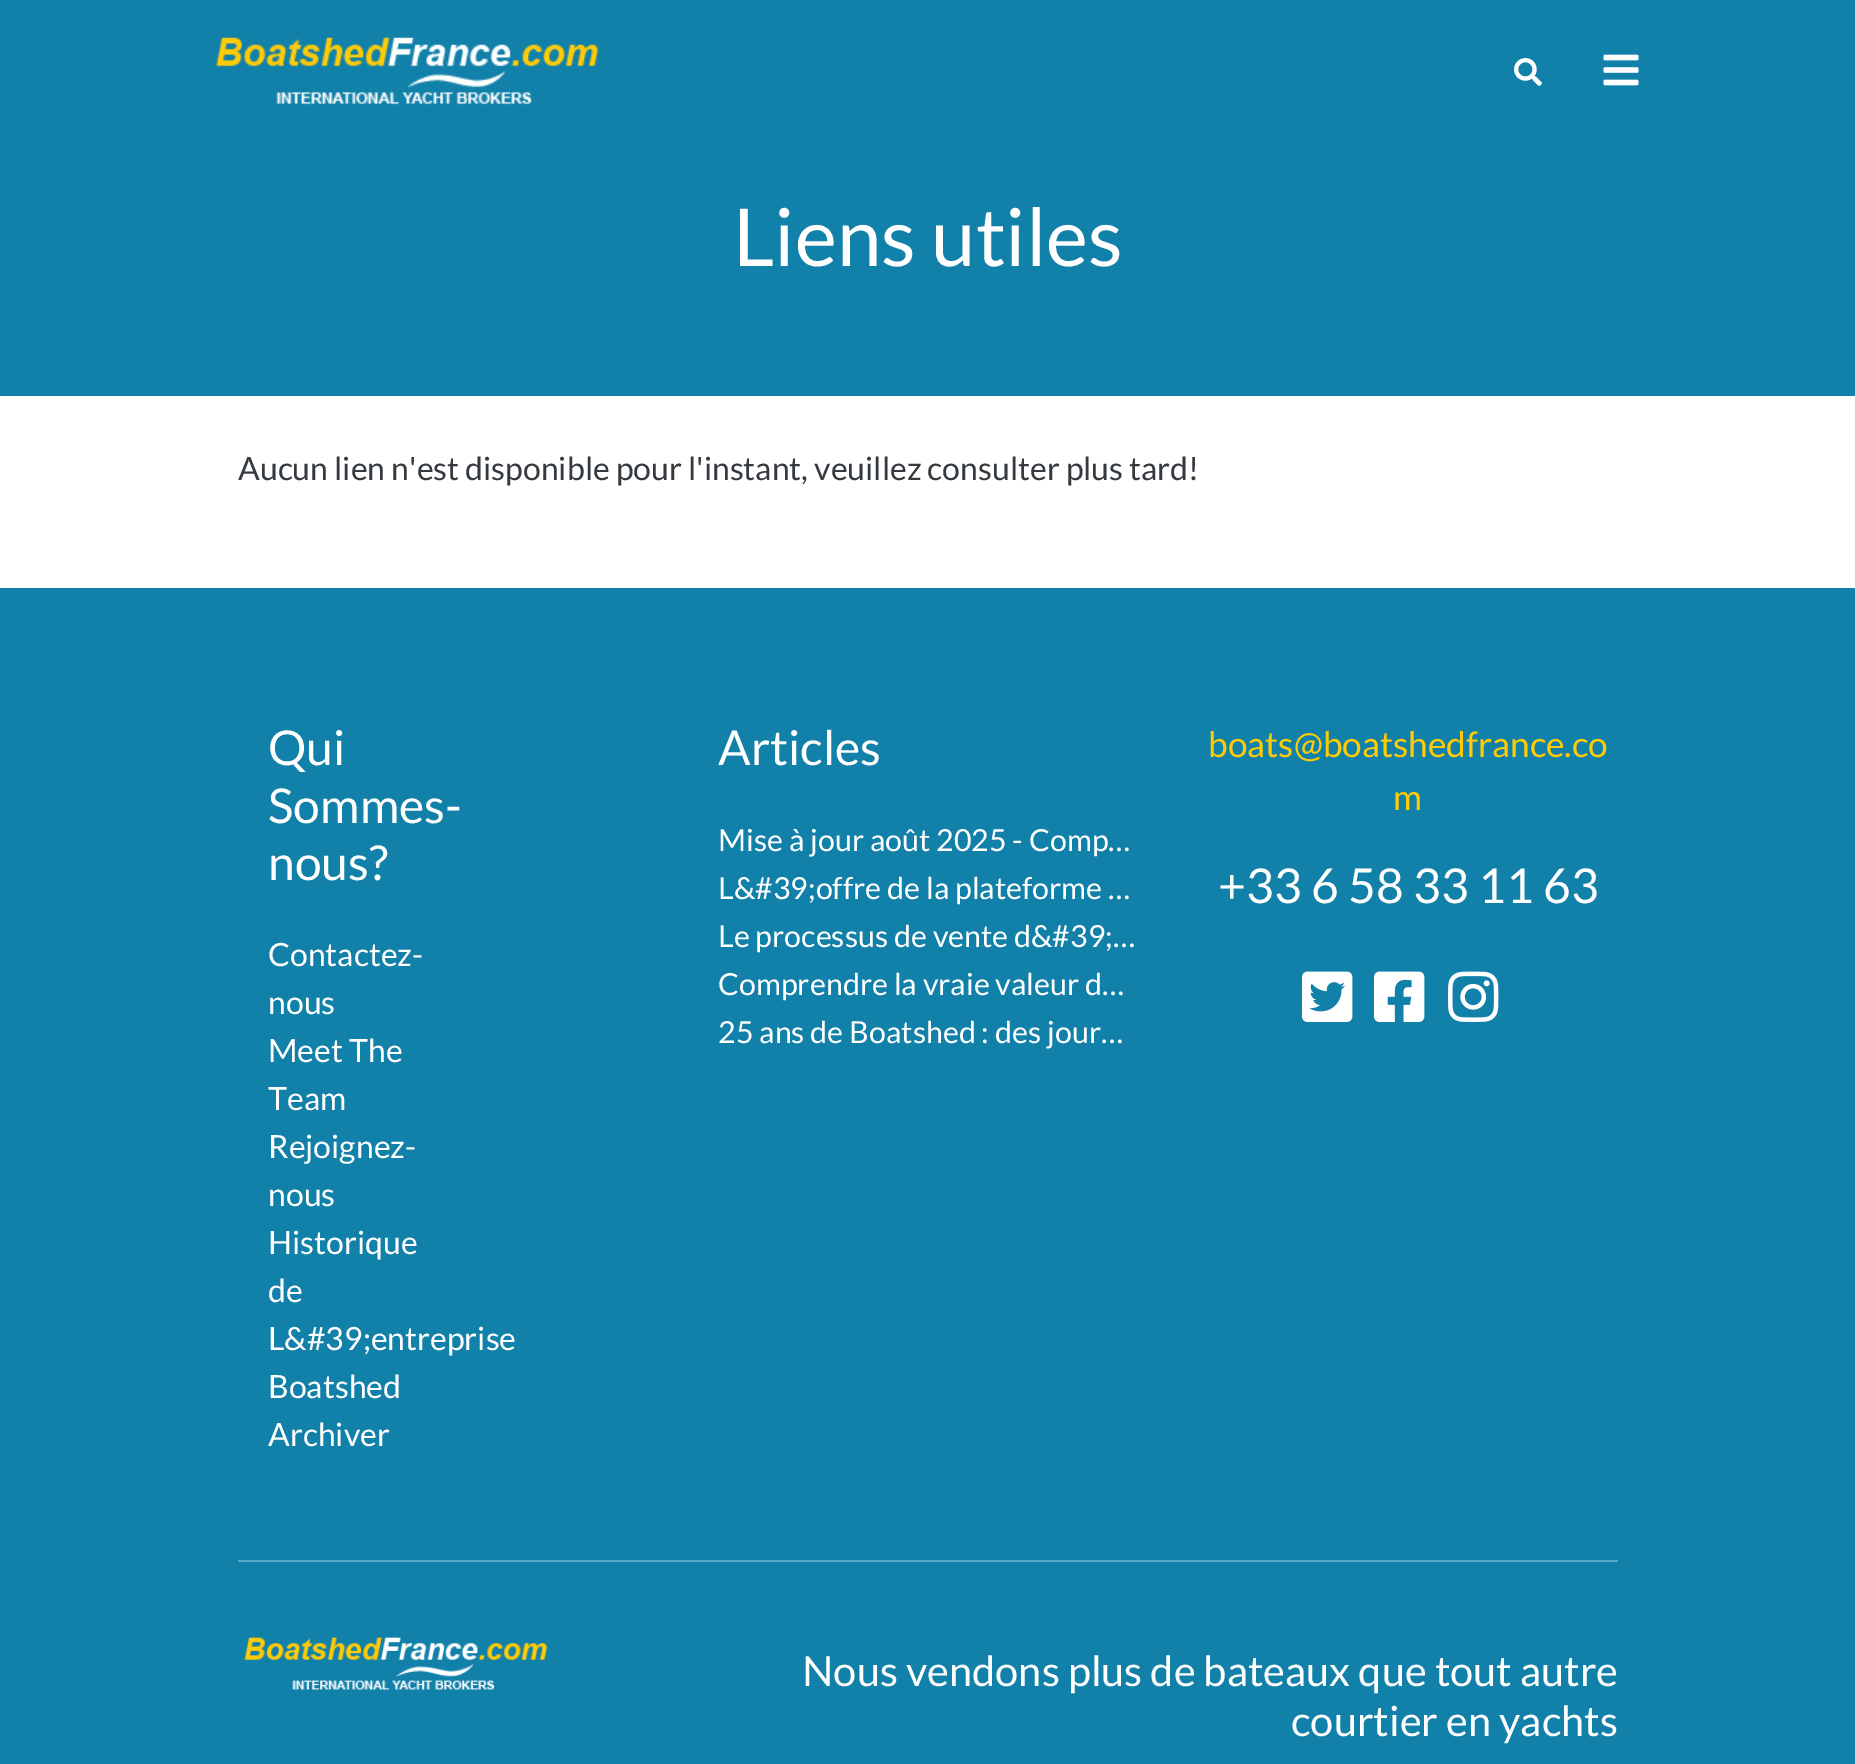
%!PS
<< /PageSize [1855 1764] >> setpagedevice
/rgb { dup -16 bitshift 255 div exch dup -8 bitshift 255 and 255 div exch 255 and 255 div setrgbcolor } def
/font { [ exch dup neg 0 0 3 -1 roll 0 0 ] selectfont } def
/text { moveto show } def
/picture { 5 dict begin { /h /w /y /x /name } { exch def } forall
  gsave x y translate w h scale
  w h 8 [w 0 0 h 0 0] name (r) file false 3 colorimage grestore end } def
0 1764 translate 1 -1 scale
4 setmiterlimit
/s1 { /Lato-Regular 80 font 16#FFFFFF rgb } def
/s2 { /Lato-Regular 32 font 16#353A40 rgb } def
/s3 { /Lato-Regular 48 font 16#FFFFFF rgb } def
/s4 { /Lato-Regular 32 font 16#FFFFFF rgb } def
/s5 { /Lato-Regular 30.4 font 16#FFFFFF rgb } def
/s6 { /Lato-Regular 35.25 font 16#FFCB05 rgb } def
/s7 { /Lato-Regular 41.6 font 16#FFFFFF rgb } def
16#FFFFFF rgb
0 0 1855 1764 rectfill
16#1281AA rgb
0 0 1855 396 rectfill
(pic1.raw) 216 37 383 68 picture
(pic2.raw) 1514 58 28 28 picture
(pic3.raw) 1603 54 36 32 picture
s1
(Liens utiles) 733 266 text
s2
(Aucun lien n'est disponible pour l'instant, veuillez consulter plus tard!) 238 480 text
16#1281AA rgb
0 588 1855 1176 rectfill
s3
(Qui) 268 765 text
(Sommes-) 268 823 text
(nous?) 268 880 text
s4
(Contactez-) 268 966 text
(nous) 268 1014 text
(Meet The) 268 1062 text
(Team) 268 1110 text
(Rejoignez-) 268 1158 text
(nous) 268 1206 text
(Historique) 268 1254 text
(de) 268 1302 text
(L&#39;entreprise) 268 1350 text
(Boatshed) 268 1398 text
(Archiver) 268 1446 text
s3
(Articles) 718 765 text
s5
(Mise à jour août 2025 - Comp…) 718 851 text
(L&#39;offre de la plateforme …) 718 899 text
(Le processus de vente d&#39;…) 718 947 text
(Comprendre la vraie valeur d…) 718 995 text
(25 ans de Boatshed : des jour…) 718 1043 text
s6
(boats@boatshedfrance.co) 1208 757 text
(m) 1393 810 text
s3
(+33 6 58 33 11 63) 1218 903 text
(pic4.raw) 1302 971 51 51 picture
(pic5.raw) 1374 971 51 51 picture
(pic6.raw) 1448 971 51 51 picture
16#59A7C4 rgb
238 1560 1380 2 rectfill
(pic7.raw) 244 1637 304 53 picture
s7
(Nous vendons plus de bateaux que tout autre) 802 1686 text
(courtier en yachts) 1291 1736 text
showpage
